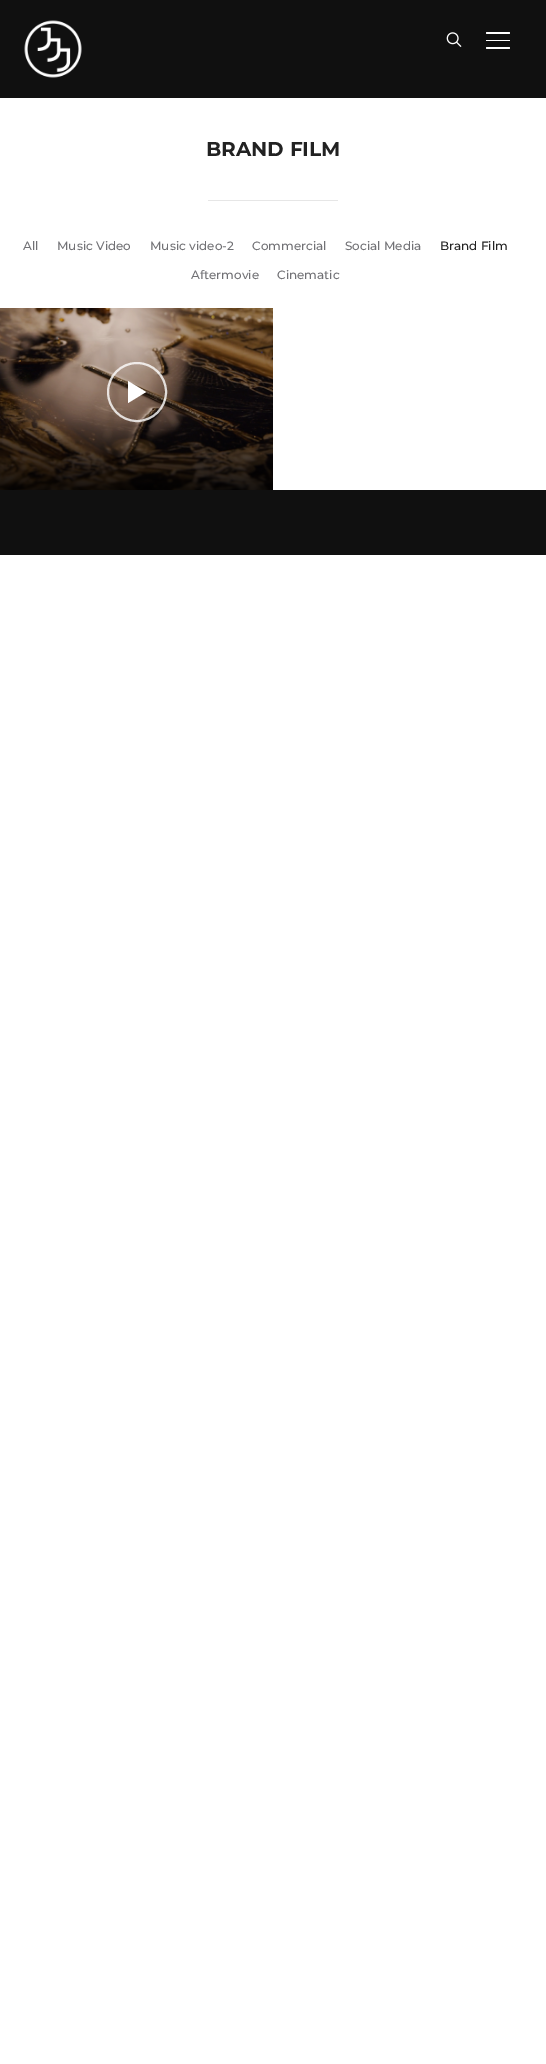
%!PS
<< /PageSize [546 2064] /PageUsesTransparency true >> setpagedevice
/rgb { dup -16 bitshift 255 div exch dup -8 bitshift 255 and 255 div exch 255 and 255 div setrgbcolor } def
/font { [ exch dup neg 0 0 3 -1 roll 0 0 ] selectfont } def
/text { moveto show } def
/alpha { dup .setfillconstantalpha .setstrokeconstantalpha } def
/circle { newpath 0 360 arc closepath } def
/roundrect { 5 dict begin { /r /h /w /y /x } { exch def } forall
  x r add y moveto x w add y 2 copy h add r arct x w add y h add x 1 index r arct
  x y h add x y r arct x y 2 copy exch w add exch r arct closepath end } def
/picture { 5 dict begin { /h /w /y /x /name } { exch def } forall
  gsave x y translate w h scale
  w h 8 [w 0 0 h 0 0] name (r) file false 3 colorimage grestore end } def
0 .pushpdf14devicefilter
0 2064 translate 1 -1 scale
4 setmiterlimit
/s1 { /Montserrat-Bold 20 font 16#222222 rgb } def
/s2 { /Montserrat-Medium 12 font 16#717175 rgb } def
/s3 { /Montserrat-Medium 12 font 16#222222 rgb } def
16#FFFFFF rgb
0 0 546 2064 rectfill
16#101010 rgb
0 0 546 98 rectfill
(pic1.raw) 24 20 58 58 picture
(pic2.raw) 446 32 16 15 picture
16#FFFFFF rgb
486 32 24 2 1 roundrect fill
486 40 24 1 0.5 roundrect fill
486 47 24 2 1 roundrect fill
s1
(BRAND FILM) 206 156 text
16#E6E6E6 rgb
208 200 130 1 rectfill
s2
(All) 23 250 text
(Music Video) 57 250 text
(Music video-2) 150 250 text
(Commercial) 252 250 text
(Social Media) 345 250 text
s3
(Brand Film) 440 250 text
s2
(Aftermovie) 191 279 text
(Cinematic) 277 279 text
(pic3.raw) 0 308 273 182 picture
16#FFFFFF rgb
128 381 moveto 146 392 lineto 128 403 lineto closepath fill
0.8 alpha
2 setlinewidth
137 392 29 circle stroke
1 alpha
16#101010 rgb
0 490 546 65 rectfill
.poppdf14devicefilter showpage
